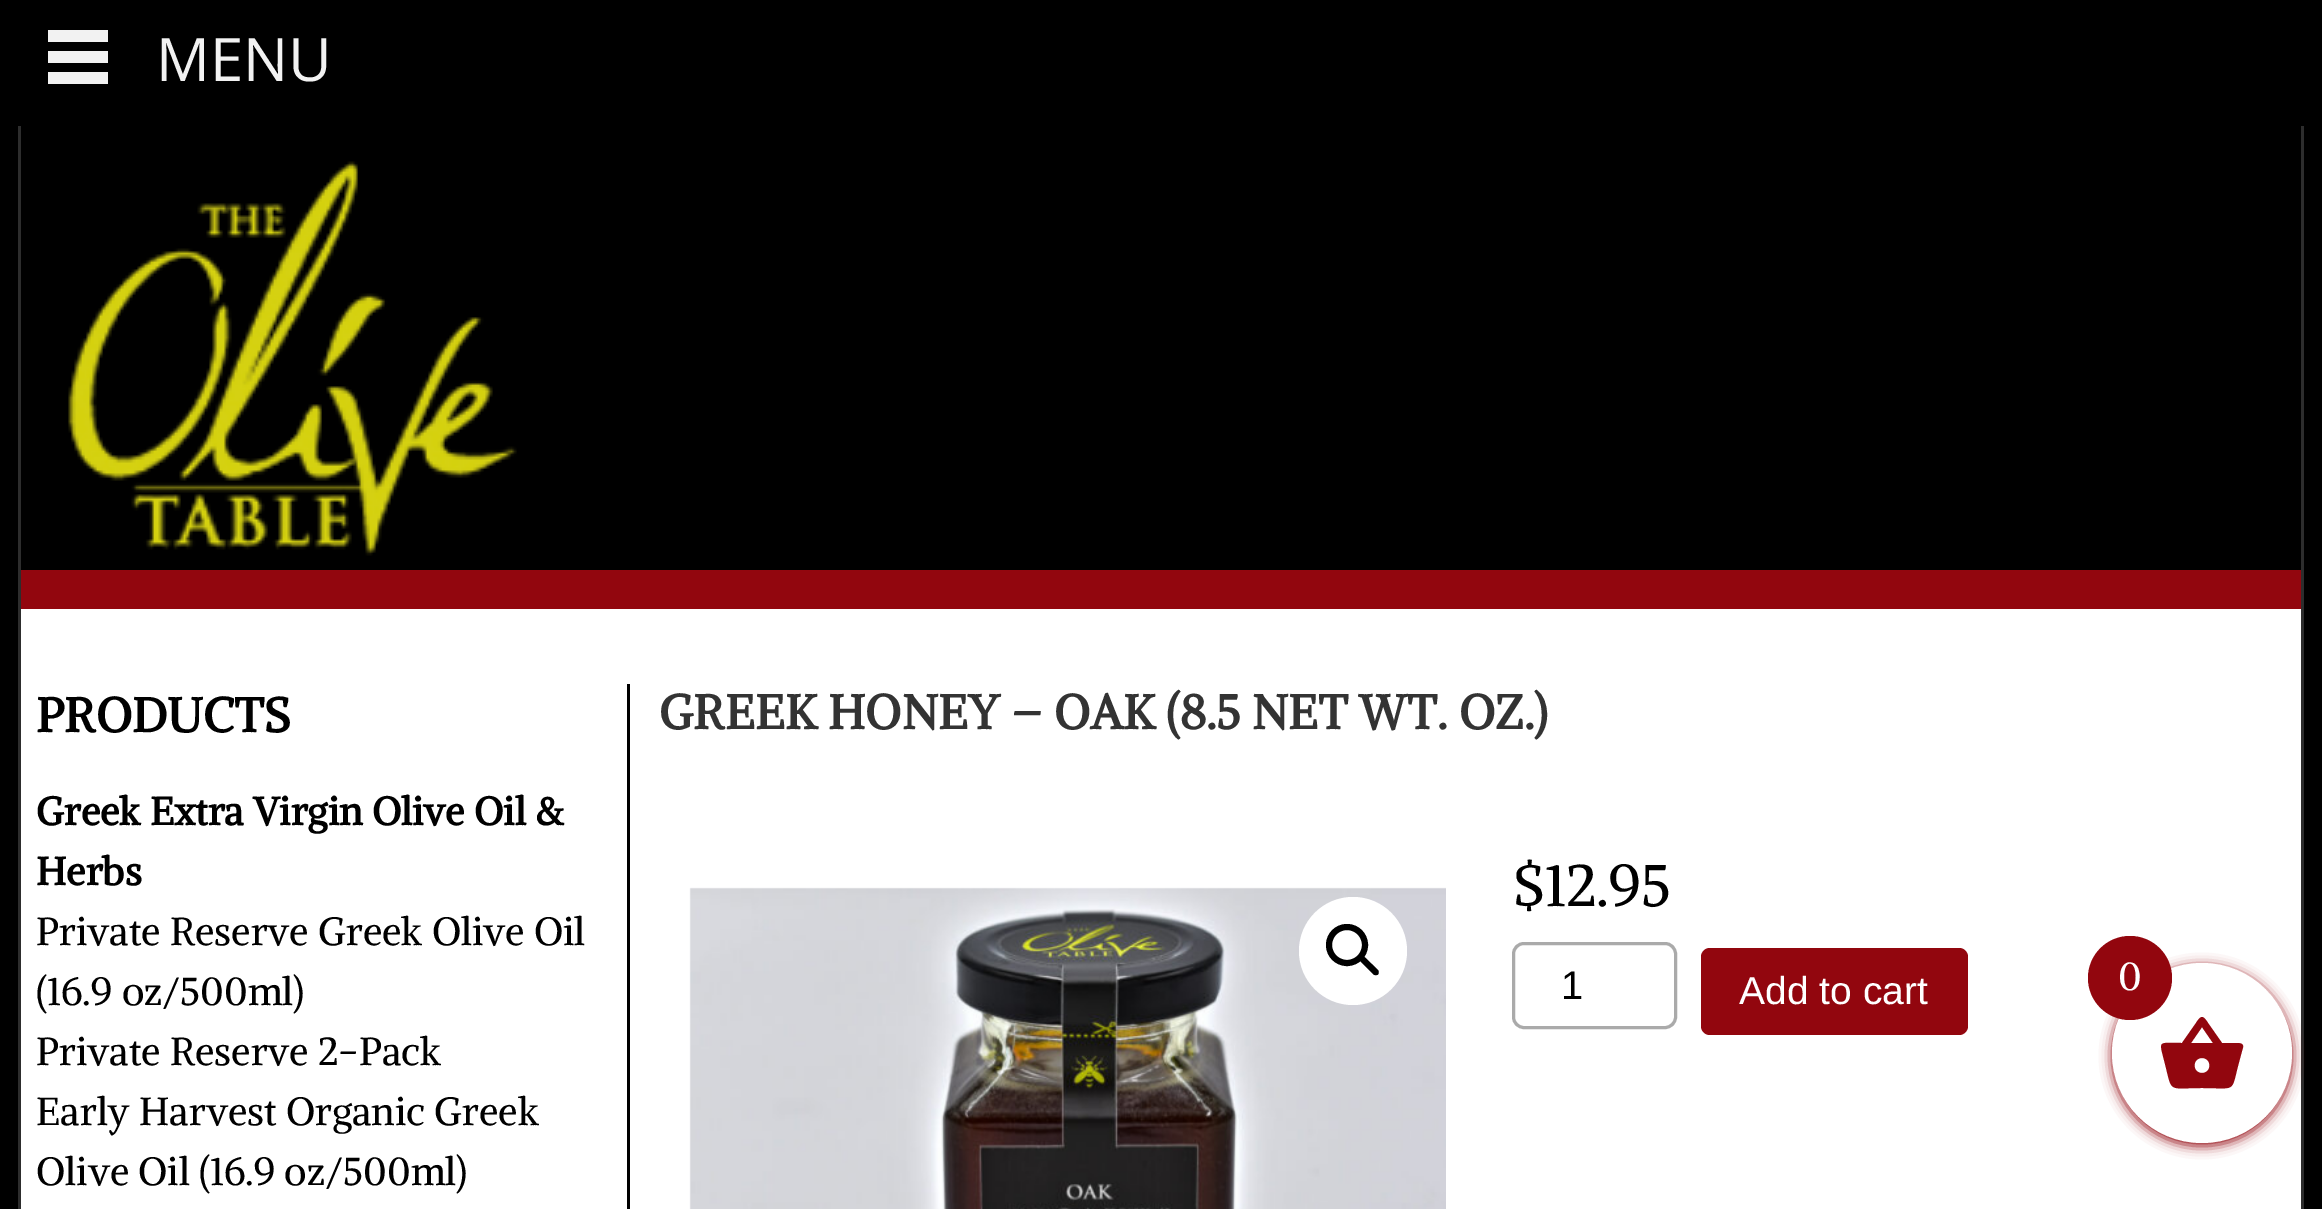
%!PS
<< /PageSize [2322 1209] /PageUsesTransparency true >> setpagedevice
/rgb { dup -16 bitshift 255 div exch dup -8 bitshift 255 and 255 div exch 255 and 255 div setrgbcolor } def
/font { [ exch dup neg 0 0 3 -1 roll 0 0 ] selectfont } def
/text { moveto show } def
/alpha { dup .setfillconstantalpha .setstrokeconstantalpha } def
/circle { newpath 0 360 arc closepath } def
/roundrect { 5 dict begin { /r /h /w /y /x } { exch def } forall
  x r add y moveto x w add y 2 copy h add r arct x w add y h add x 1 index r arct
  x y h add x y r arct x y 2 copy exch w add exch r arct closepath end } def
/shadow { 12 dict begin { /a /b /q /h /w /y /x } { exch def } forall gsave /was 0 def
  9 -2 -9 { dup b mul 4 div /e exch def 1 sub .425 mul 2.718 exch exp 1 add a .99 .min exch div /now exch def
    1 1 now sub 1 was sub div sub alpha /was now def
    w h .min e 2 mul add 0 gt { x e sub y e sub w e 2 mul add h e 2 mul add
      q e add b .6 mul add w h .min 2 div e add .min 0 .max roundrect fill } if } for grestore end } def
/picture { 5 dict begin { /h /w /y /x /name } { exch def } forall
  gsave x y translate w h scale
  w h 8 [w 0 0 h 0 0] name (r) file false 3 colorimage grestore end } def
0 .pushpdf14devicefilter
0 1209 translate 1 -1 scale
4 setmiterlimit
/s1 { /OpenSans-Regular 60 font 16#F2F2F2 rgb } def
/s2 { /Alike-Bold 48 font 16#000000 rgb } def
/s3 { /Alike-Bold 39 font 16#000000 rgb } def
/s4 { /Alike-Regular 39 font 16#000000 rgb } def
/s5 { /Alike-Bold 48 font 16#333333 rgb } def
/s6 { /Alike-Regular 58.5 font 16#000000 rgb } def
/s7 { /LiberationSans-Regular 40 font 16#000000 rgb } def
/s8 { /LiberationSans-Regular 39 font 16#FFFFFF rgb } def
/s9 { /Alike-Regular 39 font 16#FFFFFF rgb } def
16#000000 rgb
0 0 2322 1209 rectfill
16#F2F2F2 rgb
48 30 60 12 rectfill
48 51 60 12 rectfill
48 72 60 12 rectfill
s1
(MENU) 156 81 text
16#2D2D2D rgb
2301 126 3 1083 rectfill
18 126 3 1083 rectfill
(pic1.raw) 68 161 449 395 picture
16#FFFFFF rgb
21 609 2280 600 rectfill
16#92060E rgb
21 570 2280 39 rectfill
s2
(PRODUCTS) 36 732 text
s3
(Greek Extra Virgin Olive Oil &) 36 825 text
(Herbs) 36 885 text
s4
(Private Reserve Greek Olive Oil) 36 945 text
(\(16.9 oz/500ml\)) 36 1005 text
(Private Reserve 2-Pack) 36 1065 text
(Early Harvest Organic Greek) 36 1125 text
(Olive Oil \(16.9 oz/500ml\)) 36 1185 text
627 684 3 525 rectfill
s5
(GREEK HONEY – OAK \(8.5 NET WT. OZ.\)) 659 729 text
(pic2.raw) 689 887 757 322 picture
16#FFFFFF rgb
1353 951 54 circle fill
16#000000 rgb
6 setlinewidth
1347 945 18 circle stroke
1361 957.5 moveto 1362 956.5 1364 956.5 1365 957.5 curveto 1378 970 lineto 1379 971.5 1379 973.5 1378 974.5 curveto 1376.5 975.5 1375 975.5 1373.5 974.5 curveto 1361 962 lineto 1359.5 960.5 1359.5 958.5 1361 957.5 curveto closepath fill
s6
($12.95) 1513 906 text
16#AAAAAA rgb
3 setlinewidth
1513.5 943.5 162 84 10.5 roundrect stroke
s7
(1) 1561 999 text
16#92060E rgb
1701 948 267 87 9 roundrect fill
s8
(Add to cart) 1739 1004 text
16#92060E rgb
2112 966 180 180 90 6 1 shadow
16#FFFFFF rgb
2202 1053 90 circle fill
16#92060E rgb
2202 1073 moveto 2212 1073 2212 1058 2202 1058 curveto 2192 1058 2192 1073 2202 1073 curveto closepath 2191 1043 moveto 2213 1043 lineto 2202 1027 lineto closepath 2222 1043 moveto 2236 1043 lineto 2244 1043 2244 1045 2242 1051 curveto 2238 1066 lineto 2231 1093 2236 1088 2202 1088 curveto 2166 1088 2173 1094 2164 1060 curveto 2159 1040 2158 1043 2182 1043 curveto 2196 1023 lineto 2201 1015 2203 1015 2208 1023 curveto closepath fill
2130 978 42 circle fill
s9
(0) 2118 990 text
.poppdf14devicefilter showpage
